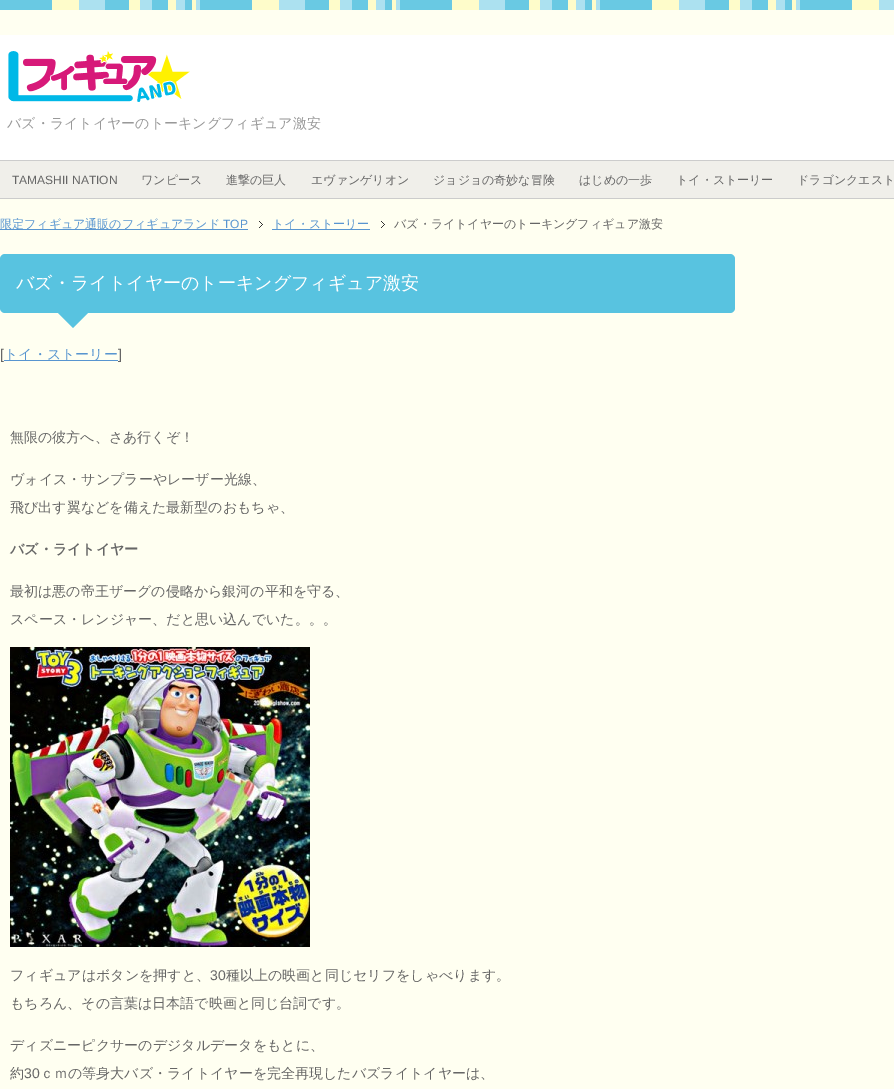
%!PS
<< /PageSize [894 1089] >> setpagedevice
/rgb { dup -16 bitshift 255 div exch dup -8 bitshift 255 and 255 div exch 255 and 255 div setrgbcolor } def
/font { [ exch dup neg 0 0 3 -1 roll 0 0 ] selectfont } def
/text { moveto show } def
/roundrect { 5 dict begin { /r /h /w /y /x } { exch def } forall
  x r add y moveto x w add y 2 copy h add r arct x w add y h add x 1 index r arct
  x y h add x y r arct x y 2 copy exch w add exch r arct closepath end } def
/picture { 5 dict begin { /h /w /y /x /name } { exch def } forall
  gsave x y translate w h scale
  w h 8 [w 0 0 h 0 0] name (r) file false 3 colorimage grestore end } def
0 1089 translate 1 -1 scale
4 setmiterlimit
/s1 { /WenQuanYiZenHei-Medium 14 font 16#999999 rgb } def
/s2 { /LiberationSans-Regular 12 font 16#666666 rgb } def
/s3 { /WenQuanYiZenHei-Medium 12 font 16#666666 rgb } def
/s4 { /WenQuanYiZenHei-Medium 12 font 16#5895D0 rgb } def
/s5 { /LiberationSans-Regular 12 font 16#5895D0 rgb } def
/s6 { /WenQuanYiZenHei-Medium 18 font 16#FFFFFF rgb } def
/s7 { /LiberationSans-Regular 14 font 16#666666 rgb } def
/s8 { /WenQuanYiZenHei-Medium 14 font 16#5895D0 rgb } def
/s9 { /WenQuanYiZenHei-Medium 14 font 16#666666 rgb } def
/s10 { /WenQuanYiZenHei-Bold 14 font 16#666666 rgb } def
16#58C3E0 rgb
0 0 894 1089 rectfill
(pic1.raw) 0 0 894 10 picture
16#FFFFF1 rgb
0 10 894 1079 rectfill
16#FFFFFF rgb
0 35 894 125 rectfill
(pic2.raw) 8 51 182 51 picture
s1
(バズ・ライトイヤーのトーキングフィギュア激安) 7 128 text
16#F0EFEA rgb
0 161 894 37 rectfill
16#CCCCCC rgb
0 160 894 1 rectfill
0 198 894 1 rectfill
s2
(TAMASHII NATION) 12 184 text
s3
(ワンピース) 141 184 text
(進撃の巨人) 226 184 text
(エヴァンゲリオン) 311 184 text
(ジョジョの奇妙な冒険) 433 184 text
(はじめの一歩) 579 184 text
(トイ・ストーリー) 676 184 text
(ドラゴンクエスト) 797 184 text
16#5895D0 rgb
0 229 248 1 rectfill
(限定フィギュア通販のフィギュアランド) 0 228 text
s5
(TOP) 223 228 text
(pic3.raw) 259 221 4 7 picture
272 229 98 1 rectfill
s4
(トイ・ストーリー) 272 228 text
(pic3.raw) 381 221 4 7 picture
s3
(バズ・ライトイヤーのトーキングフィギュア激安) 394 228 text
16#58C3E0 rgb
0 254 735 59 5 roundrect fill
s6
(バズ・ライトイヤーのトーキングフィギュア激安) 16 289 text
16#58C3E0 rgb
58 313 moveto 88 313 lineto 73 328 lineto closepath fill
s7
([) 0 359 text
16#5895D0 rgb
4 360 114 1 rectfill
s8
(トイ・ストーリー) 4 359 text
s7
(]) 118 359 text
s9
(無限の彼方へ、さあ行くぞ！) 10 442 text
(ヴォイス・サンプラーやレーザー光線、) 10 484 text
(飛び出す翼などを備えた最新型のおもちゃ、) 10 512 text
s10
(バズ・ライトイヤー) 10 554 text
s9
(最初は悪の帝王ザーグの侵略から銀河の平和を守る、) 10 596 text
(スペース・レンジャー、だと思い込んでいた。。。) 10 624 text
(pic4.raw) 10 647 300 300 picture
(フィギュアはボタンを押すと、) 10 980 text
s7
(30) 210 980 text
s9
(種以上の映画と同じセリフをしゃべります。) 226 980 text
(もちろん、その言葉は日本語で映画と同じ台詞です。) 10 1008 text
(ディズニーピクサーのデジタルデータをもとに、) 10 1050 text
(約) 10 1078 text
s7
(30) 24 1078 text
s9
(ｃｍの等身大バズ・ライトイヤーを完全再現したバズライトイヤーは、) 40 1078 text
showpage
